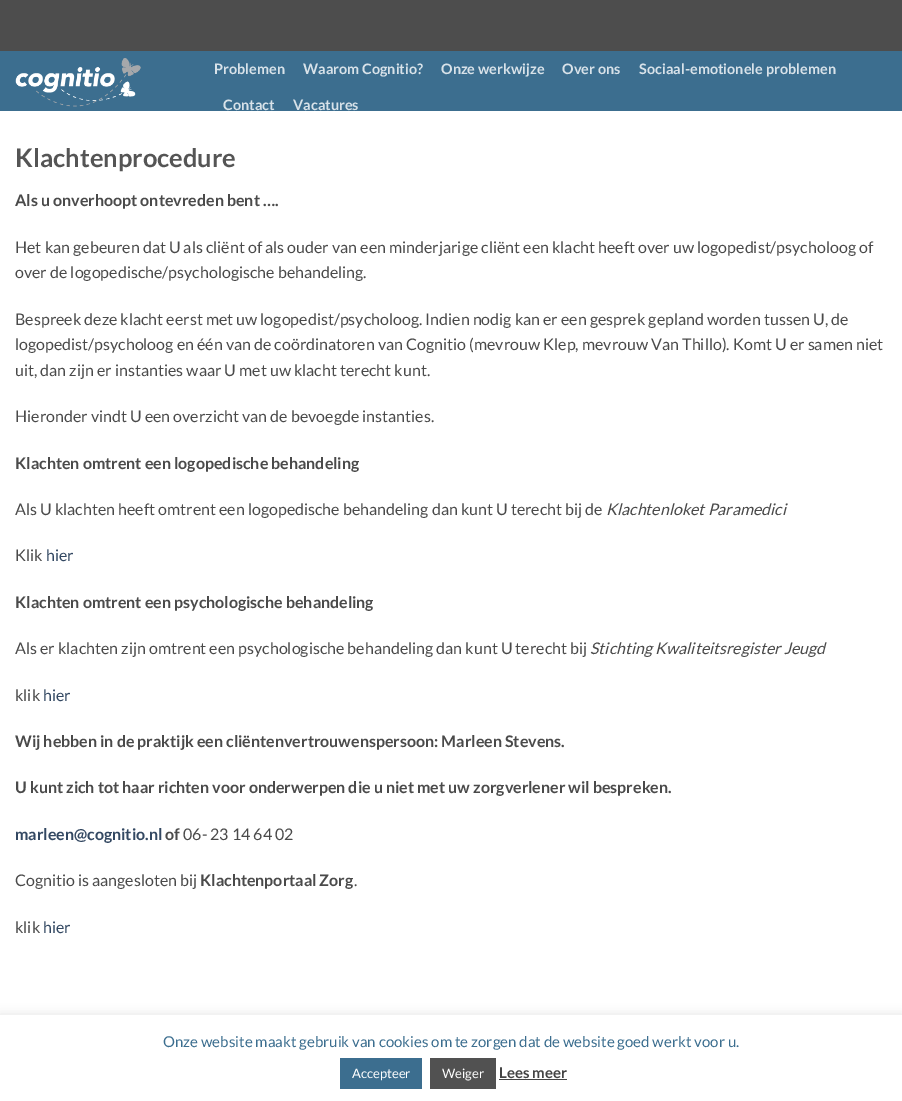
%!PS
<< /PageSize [902 1101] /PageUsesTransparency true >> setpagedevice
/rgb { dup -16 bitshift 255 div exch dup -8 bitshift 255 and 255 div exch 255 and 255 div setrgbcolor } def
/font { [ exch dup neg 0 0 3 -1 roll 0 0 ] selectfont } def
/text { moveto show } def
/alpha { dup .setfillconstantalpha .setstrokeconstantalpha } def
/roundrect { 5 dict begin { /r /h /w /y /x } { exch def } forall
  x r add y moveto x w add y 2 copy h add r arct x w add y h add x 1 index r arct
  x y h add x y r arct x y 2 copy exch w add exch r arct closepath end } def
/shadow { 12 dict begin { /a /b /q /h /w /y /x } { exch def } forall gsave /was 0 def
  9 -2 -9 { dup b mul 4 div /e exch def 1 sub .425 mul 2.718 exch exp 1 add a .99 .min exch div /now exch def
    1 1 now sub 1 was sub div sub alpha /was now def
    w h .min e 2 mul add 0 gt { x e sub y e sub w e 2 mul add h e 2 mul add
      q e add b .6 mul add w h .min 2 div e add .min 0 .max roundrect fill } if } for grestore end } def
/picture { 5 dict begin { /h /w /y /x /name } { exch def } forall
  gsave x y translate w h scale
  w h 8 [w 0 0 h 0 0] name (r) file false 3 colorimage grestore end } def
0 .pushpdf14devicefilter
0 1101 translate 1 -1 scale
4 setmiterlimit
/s1 { /Lato-Bold 14.4 font 16#D8E2E9 rgb } def
/s2 { /Lato-Bold 25.5 font 16#555555 rgb } def
/s3 { /Lato-Bold 16 font 16#4A4A4A rgb } def
/s4 { /Lato-Regular 16 font 16#4A4A4A rgb } def
/s5 { /Lato-Italic 16 font 16#4A4A4A rgb } def
/s6 { /Lato-Regular 16 font 16#334862 rgb } def
/s7 { /Lato-Bold 16 font 16#334862 rgb } def
/s8 { /Lato-Regular 15 font 16#3C6E8F rgb } def
/s9 { /Lato-Regular 13 font 16#FFFFFF rgb } def
/s10 { /Lato-Bold 15 font 16#444444 rgb } def
16#4D4D4D rgb
0 0 902 1101 rectfill
16#FFFFFF rgb
0 111 902 904 rectfill
16#3C6E8F rgb
0 51 902 60 rectfill
(pic1.raw) 15 58 126 49 picture
s1
(Problemen) 214 74 text
(Waarom Cognitio?) 303 74 text
(Onze werkwijze) 441 74 text
(Over ons) 562 74 text
(Sociaal-emotionele problemen) 639 74 text
(Contact) 223 110 text
(Vacatures) 293 110 text
s2
(Klachtenprocedure) 15 167 text
s3
(Als u onverhoopt ontevreden bent ….) 15 206 text
s4
(Het kan gebeuren dat U als cliënt of als ouder van een minderjarige cliënt een klacht heeft over uw logopedist/psycholoog of) 15 253 text
(over de logopedische/psychologische behandeling.) 15 278 text
(Bespreek deze klacht eerst met uw logopedist/psycholoog. Indien nodig kan er een gesprek gepland worden tussen U, de) 15 325 text
(logopedist/psycholoog en één van de coördinatoren van Cognitio \(mevrouw Klep, mevrouw Van Thillo\). Komt U er samen niet) 15 350 text
(uit, dan zijn er instanties waar U met uw klacht terecht kunt.) 15 376 text
(Hieronder vindt U een overzicht van de bevoegde instanties.) 15 422 text
s3
(Klachten omtrent een logopedische behandeling) 15 469 text
s4
(Als U klachten heeft omtrent een logopedische behandeling dan kunt U terecht bij de) 15 515 text
s5
(Klachtenloket Paramedici) 606 515 text
s4
(Klik) 15 561 text
s6
(hier) 46 561 text
s3
(Klachten omtrent een psychologische behandeling) 15 608 text
s4
(Als er klachten zijn omtrent een psychologische behandeling dan kunt U terecht bij) 15 654 text
s5
(Stichting Kwaliteitsregister Jeugd) 590 654 text
s4
(klik) 15 701 text
s6
(hier) 43 701 text
s3
(Wij hebben in de praktijk een cliëntenvertrouwenspersoon: Marleen Stevens.) 15 747 text
(U kunt zich tot haar richten voor onderwerpen die u niet met uw zorgverlener wil bespreken.) 15 793 text
s7
(marleen@cognitio.nl) 15 840 text
s3
(of) 165 840 text
s4
(06- 23 14 64 02) 183 840 text
(Cognitio is aangesloten bij) 15 886 text
s3
(Klachtenportaal Zorg) 200 886 text
s4
(.) 354 886 text
(klik) 15 933 text
s6
(hier) 43 933 text
16#ACABAB rgb
0 1014 902 86 0 5 0.3 shadow
16#FFFFFF rgb
0 1015 902 86 rectfill
s8
(Onze website maakt gebruik van cookies om te zorgen dat de website goed werkt voor u.) 163 1047 text
340 1058 82 31 rectfill
s9
(Accepteer) 352 1078 text
16#515151 rgb
430 1058 66 31 rectfill
s9
(Weiger) 442 1078 text
s10
(Lees meer) 499 1078 text
499 1079 68 1 rectfill
.poppdf14devicefilter showpage
